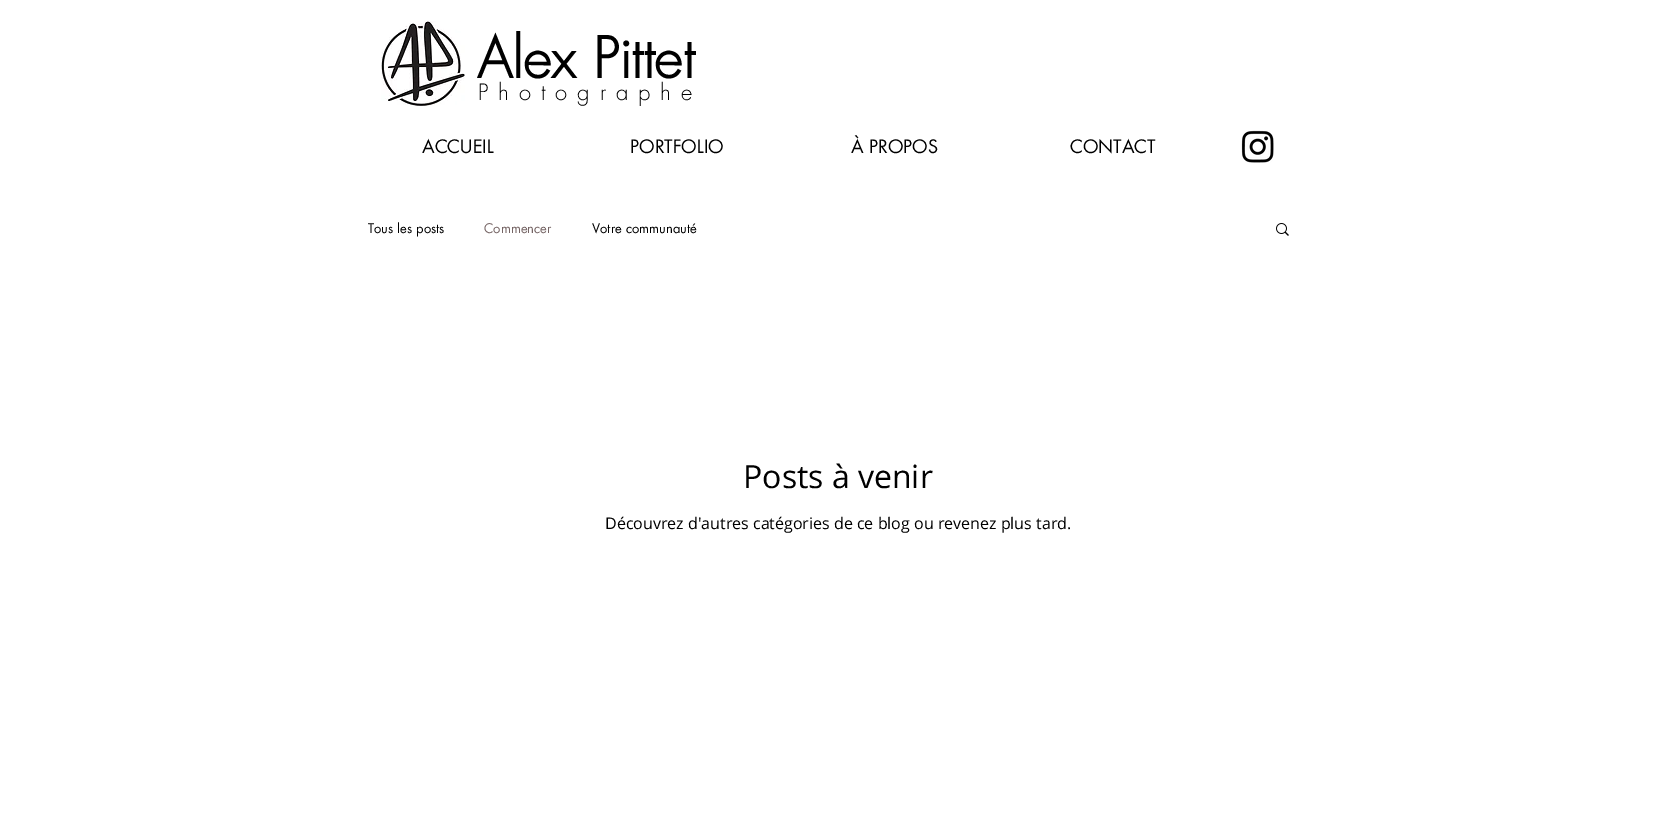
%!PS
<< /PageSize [1676 838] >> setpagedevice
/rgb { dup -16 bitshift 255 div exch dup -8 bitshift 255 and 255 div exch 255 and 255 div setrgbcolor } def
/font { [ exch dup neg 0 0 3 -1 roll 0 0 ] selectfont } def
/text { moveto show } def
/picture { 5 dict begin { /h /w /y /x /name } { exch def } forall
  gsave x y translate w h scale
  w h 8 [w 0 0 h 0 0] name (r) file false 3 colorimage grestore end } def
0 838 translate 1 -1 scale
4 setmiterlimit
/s1 { /futura-Bold 55 font 16#000000 rgb } def
/s2 { /futura-Regular 18 font 16#000000 rgb } def
/s3 { /futura-Regular 13 font 16#000000 rgb } def
/s4 { /futura-Regular 13 font 16#756464 rgb } def
/s5 { /OpenSans-Regular 32 font 16#000000 rgb } def
/s6 { /OpenSans-Regular 16 font 16#000000 rgb } def
16#FFFFFF rgb
0 0 1676 838 rectfill
(pic1.raw) 381 21 84 85 picture
s1
(Alex Pittet) 477 78 text
/futura-Light 22 font
478 100 moveto 9.9 0 (Photographe) ashow
s2
(ACCUEIL) 422 153 text
(PORTFOLIO) 630 153 text
(À PROPOS) 851 153 text
(CONTACT) 1070 153 text
(pic2.raw) 1241 130 33 33 picture
s3
(Tous les posts) 368 233 text
s4
(Commencer) 484 233 text
s3
(Votre communauté) 592 233 text
(pic3.raw) 1276 223 13 13 picture
s5
(Posts à venir) 743 488 text
s6
(Découvrez d'autres catégories de ce blog ou revenez plus tard.) 605 529 text
showpage
